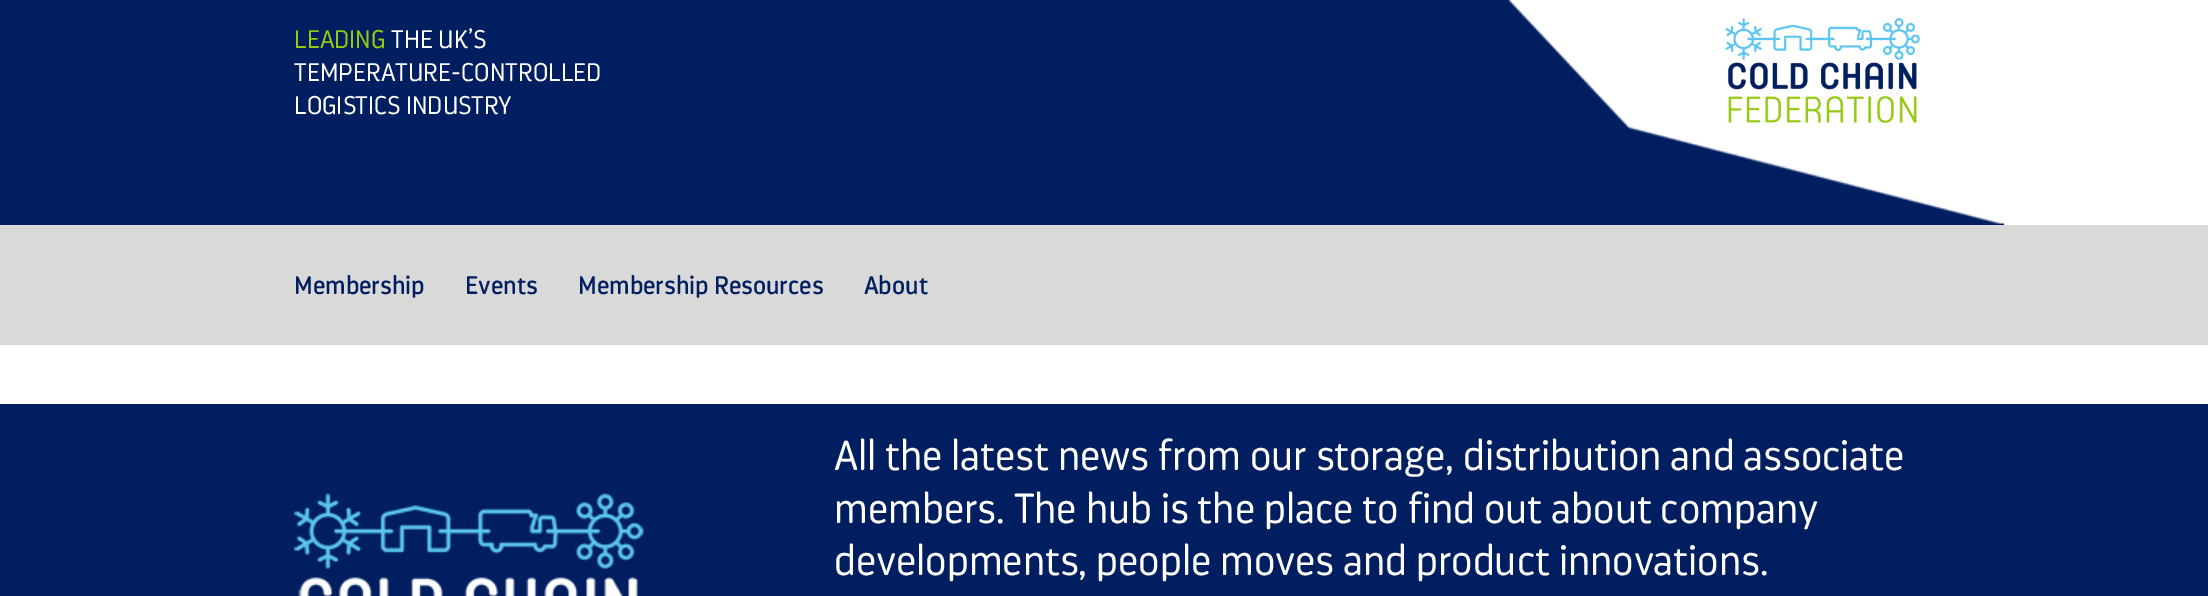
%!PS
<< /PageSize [2208 596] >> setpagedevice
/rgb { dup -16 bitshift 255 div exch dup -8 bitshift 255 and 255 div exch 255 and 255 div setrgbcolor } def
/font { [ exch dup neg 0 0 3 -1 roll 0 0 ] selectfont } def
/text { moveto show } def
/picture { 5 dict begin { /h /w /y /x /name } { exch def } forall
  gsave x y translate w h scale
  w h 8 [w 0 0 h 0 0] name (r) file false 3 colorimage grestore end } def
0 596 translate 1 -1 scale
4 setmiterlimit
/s1 { /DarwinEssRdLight-Regular 25.5 font 16#93C90E rgb } def
/s2 { /DarwinEssRdLight-Regular 25.5 font 16#FFFFFF rgb } def
/s3 { /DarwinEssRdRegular-Regular 25.5 font 16#001E60 rgb } def
/s4 { /DarwinEssRdLight-Regular 42 font 16#FFFFFF rgb } def
16#FFFFFF rgb
0 0 2208 596 rectfill
16#D9D9D9 rgb
0 225 2208 120 rectfill
16#001E60 rgb
0 0 2004 225 rectfill
(pic1.raw) 1508 0 496 224 picture
s1
(LEADING) 294 48 text
s2
(THE UK’S) 391 48 text
(TEMPERATURE-CONTROLLED) 294 81 text
(LOGISTICS INDUSTRY) 294 114 text
(pic2.raw) 1725 18 195 105 picture
s3
(Membership) 294 294 text
(Events) 465 294 text
(Membership Resources) 578 294 text
(About) 864 294 text
0 404 2208 192 rectfill
(pic3.raw) 294 493 350 103 picture
s4
(All the latest news from our storage, distribution and associate) 834 470 text
(members. The hub is the place to find out about company) 834 523 text
(developments, people moves and product innovations.) 834 575 text
showpage
